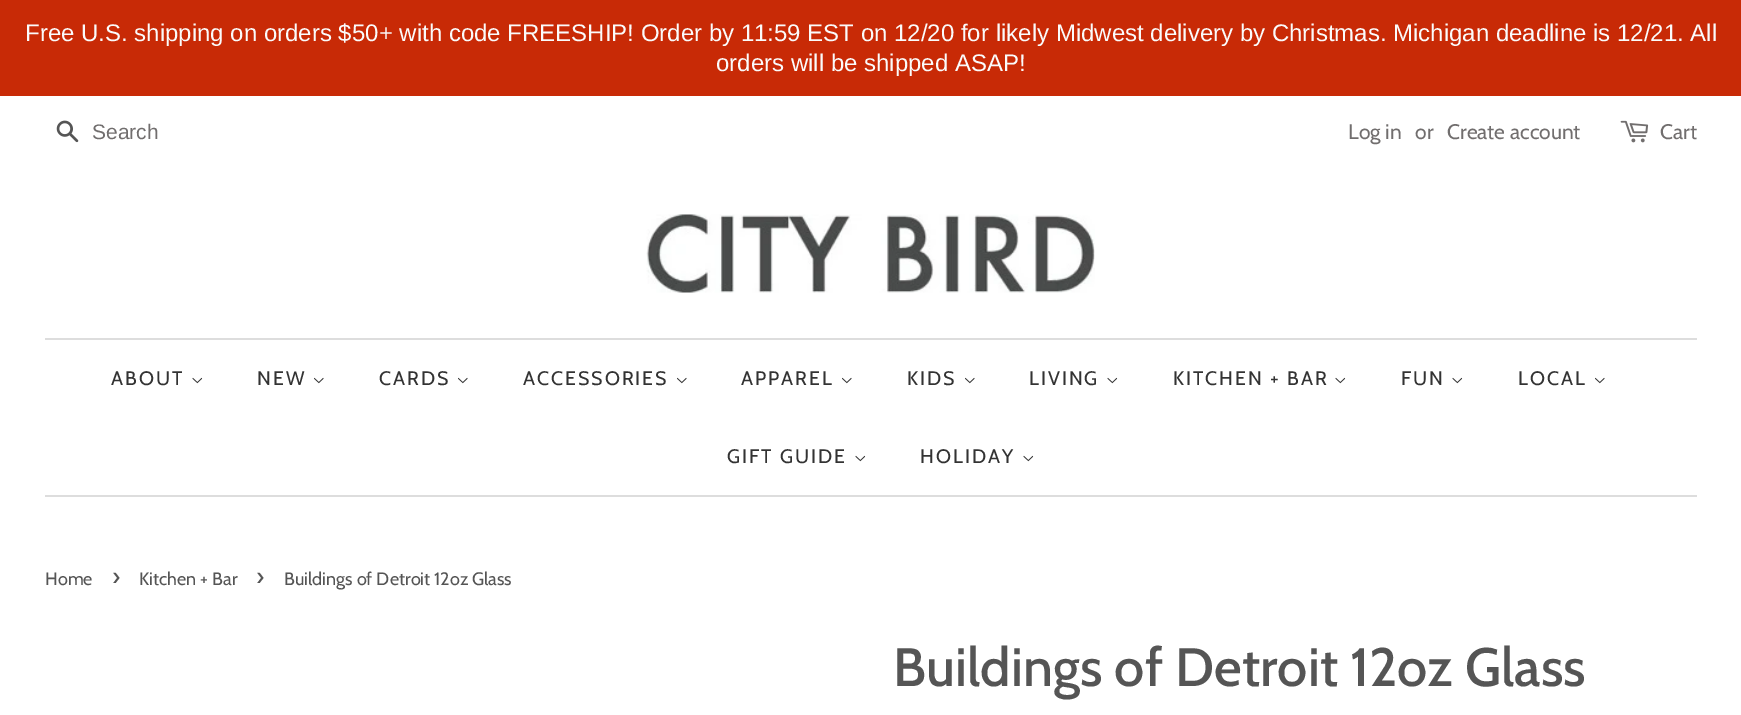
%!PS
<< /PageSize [1741 715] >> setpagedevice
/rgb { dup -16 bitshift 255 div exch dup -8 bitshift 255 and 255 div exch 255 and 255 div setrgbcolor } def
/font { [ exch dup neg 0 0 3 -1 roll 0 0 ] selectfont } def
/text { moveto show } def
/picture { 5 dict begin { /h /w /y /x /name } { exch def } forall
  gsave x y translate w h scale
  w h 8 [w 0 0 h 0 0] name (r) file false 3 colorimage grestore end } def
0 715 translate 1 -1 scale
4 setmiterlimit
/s1 { /LiberationSans-Regular 24 font 16#FBFBFB rgb } def
/s2 { /LiberationSans-Regular 21 font 16#716E6E rgb } def
/s3 { /Cabin-Regular 21 font 16#716E6E rgb } def
/s4 { /Cabin-Regular 18 font 16#555555 rgb } def
/s5 { /Cabin-Regular 25 font 16#555555 rgb } def
/s6 { /Cabin-Medium 54 font 16#555555 rgb } def
16#FFFFFF rgb
0 0 1741 715 rectfill
16#C82A06 rgb
0 0 1741 96 rectfill
s1
(Free U.S. shipping on orders $50+ with code FREESHIP! Order by 11:59 EST on 12/20 for likely Midwest delivery by Christmas. Michigan deadline is 12/21. All) 25 41 text
(orders will be shipped ASAP!) 716 71 text
(pic1.raw) 56 120 23 23 picture
s2
(Search) 92 139 text
s3
(Log in) 1348 139 text
(or) 1415 139 text
(Create account) 1447 139 text
(pic2.raw) 1620 120 29 23 picture
(Cart) 1660 139 text
(pic3.raw) 646 214 449 79 picture
16#DDDDDD rgb
45 338 1652 2 rectfill
45 495 1652 2 rectfill
/Cabin-Regular 19.5 font
16#333333 rgb
111 385 moveto 2 0 (ABOUT) ashow
(pic4.raw) 192 377 11 7 picture
257 385 moveto 2 0 (NEW) ashow
(pic5.raw) 314 377 10 7 picture
379 385 moveto 2 0 (CARDS) ashow
(pic5.raw) 458 377 10 7 picture
523 385 moveto 2 0 (ACCESSORIES) ashow
(pic5.raw) 677 377 10 7 picture
741 385 moveto 2 0 (APPAREL) ashow
(pic5.raw) 842 377 10 7 picture
907 385 moveto 2 0 (KIDS) ashow
(pic5.raw) 965 377 10 7 picture
1029 385 moveto 2 0 (LIVING) ashow
(pic4.raw) 1107 377 11 7 picture
1173 385 moveto 2 0 (KITCHEN + BAR) ashow
(pic4.raw) 1335 377 11 7 picture
1401 385 moveto 2 0 (FUN) ashow
(pic4.raw) 1452 377 11 7 picture
1518 385 moveto 2 0 (LOCAL) ashow
(pic5.raw) 1595 377 10 7 picture
727 463 moveto 2 0 (GIFT GUIDE) ashow
(pic4.raw) 855 455 11 7 picture
920 463 moveto 2 0 (HOLIDAY) ashow
(pic4.raw) 1023 455 11 7 picture
s4
(Home) 45 585 text
s5
(›) 112 585 text
s4
(Kitchen + Bar) 139 585 text
s5
(›) 256 585 text
s4
(Buildings of Detroit 12oz Glass) 284 585 text
s6
(Buildings of Detroit 12oz Glass) 893 686 text
showpage
